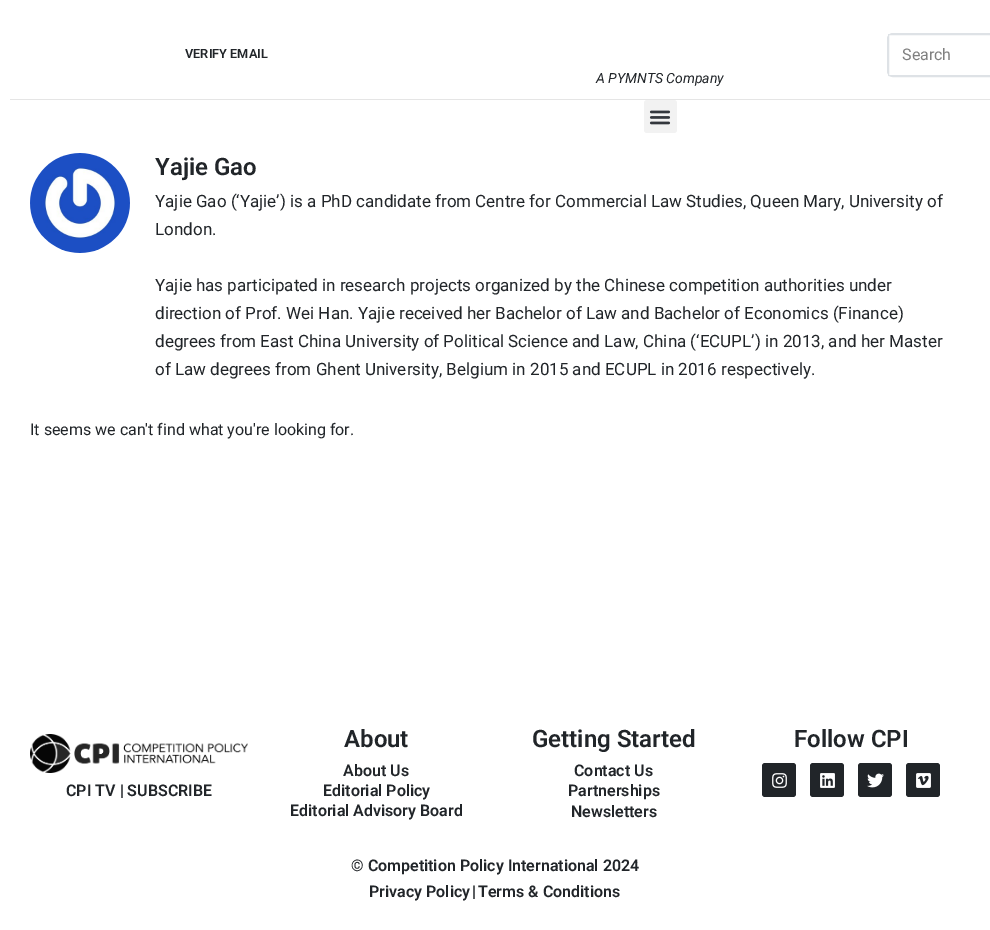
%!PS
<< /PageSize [990 930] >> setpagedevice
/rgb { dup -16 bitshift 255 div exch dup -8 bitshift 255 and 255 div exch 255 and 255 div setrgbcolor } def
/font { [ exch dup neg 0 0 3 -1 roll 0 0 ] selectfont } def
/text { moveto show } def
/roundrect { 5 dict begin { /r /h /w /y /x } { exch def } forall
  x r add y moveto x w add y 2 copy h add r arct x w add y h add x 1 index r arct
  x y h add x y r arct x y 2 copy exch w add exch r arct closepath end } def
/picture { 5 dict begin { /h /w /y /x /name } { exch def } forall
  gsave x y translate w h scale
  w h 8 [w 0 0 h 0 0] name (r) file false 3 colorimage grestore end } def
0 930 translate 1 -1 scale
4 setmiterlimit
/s1 { /Roboto-SemiBold 12.75 font 16#212529 rgb } def
/s2 { /Roboto-Regular 16 font 16#808080 rgb } def
/s3 { /Roboto-Italic 14 font 16#212529 rgb } def
/s4 { /Roboto-SemiBold 24 font 16#212529 rgb } def
/s5 { /Roboto-Regular 17 font 16#212529 rgb } def
/s6 { /Roboto-Regular 16 font 16#212529 rgb } def
/s7 { /Roboto-SemiBold 16 font 16#212529 rgb } def
16#FFFFFF rgb
0 0 990 930 rectfill
16#E5E5E5 rgb
10 99 980 1 rectfill
s1
(VERIFY EMAIL) 185 58 text
16#DEE2E6 rgb
887.5 33.5 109 43 5.5 roundrect stroke
16#FFFFFF rgb
888.5 34.5 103 41 0.5 roundrect gsave fill grestore
16#DEE2E6 rgb
stroke
s2
(Search) 902 60 text
s3
(A PYMNTS Company) 596 83 text
16#F2F2F2 rgb
644 100 33 33 3 roundrect fill
(pic1.raw) 649 110 22 15 picture
(pic2.raw) 30 153 100 100 picture
s4
(Yajie Gao) 155 175 text
s5
(Yajie Gao \(‘Yajie’\) is a PhD candidate from Centre for Commercial Law Studies, Queen Mary, University of) 155 207 text
(London.) 155 235 text
(Yajie has participated in research projects organized by the Chinese competition authorities under) 155 291 text
(direction of Prof. Wei Han. Yajie received her Bachelor of Law and Bachelor of Economics \(Finance\)) 155 319 text
(degrees from East China University of Political Science and Law, China \(‘ECUPL’\) in 2013, and her Master) 155 347 text
(of Law degrees from Ghent University, Belgium in 2015 and ECUPL in 2016 respectively.) 155 375 text
s6
(It seems we can't find what you're looking for.) 30 435 text
s4
(About) 344 747 text
s7
(About Us) 343 776 text
(Editorial Policy) 323 796 text
(Editorial Advisory Board) 290 816 text
s4
(Getting Started) 532 747 text
s7
(Contact Us) 574 776 text
(Partnerships) 568 796 text
(Newsletters) 571 817 text
s4
(Follow CPI) 794 747 text
762 763 34 34 3 roundrect fill
(pic3.raw) 772 773 15 15 picture
810 763 34 34 3 roundrect fill
(pic4.raw) 820 773 15 15 picture
858 763 34 34 3 roundrect fill
(pic5.raw) 867 773 17 15 picture
906 763 34 34 3 roundrect fill
(pic6.raw) 916 773 15 15 picture
(pic7.raw) 30 734 218 39 picture
s7
(CPI TV | SUBSCRIBE) 66 796 text
(© Competition Policy International 2024) 351 871 text
(Privacy Policy) 369 897 text
(|) 472 897 text
(Terms & Conditions) 478 897 text
showpage
